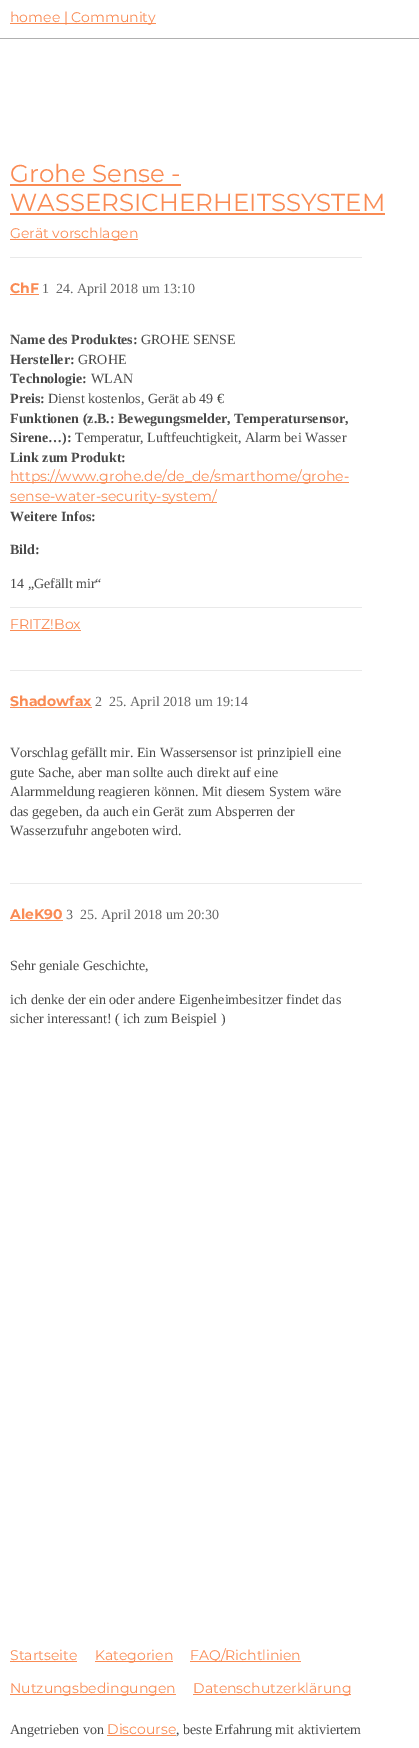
%!PS
<< /PageSize [419 1748] >> setpagedevice
/rgb { dup -16 bitshift 255 div exch dup -8 bitshift 255 and 255 div exch 255 and 255 div setrgbcolor } def
/font { [ exch dup neg 0 0 3 -1 roll 0 0 ] selectfont } def
/text { moveto show } def
0 1748 translate 1 -1 scale
4 setmiterlimit
/s1 { /Montserrat-Regular 14 font 16#FA8B54 rgb } def
/s2 { /Montserrat-Regular 24.5 font 16#FA8B54 rgb } def
/s3 { /Montserrat-Bold 14 font 16#FA8B54 rgb } def
/s4 { /LiberationSerif-Regular 14 font 16#666666 rgb } def
/s5 { /LiberationSerif-Bold 14 font 16#4A4A4A rgb } def
/s6 { /LiberationSerif-Regular 14 font 16#4A4A4A rgb } def
16#FFFFFF rgb
0 0 419 1748 rectfill
16#B0B0B0 rgb
0 38 419 1 rectfill
16#FA8B54 rgb
10 23 146 1 rectfill
s1
(homee | Community) 10 22 text
s2
(Grohe Sense -) 10 182 text
10 184 171 2 rectfill
(WASSERSICHERHEITSSYSTEM) 10 211 text
10 213 375 2 rectfill
10 239 128 1 rectfill
s1
(Gerät vorschlagen) 10 238 text
16#E9E9E9 rgb
10 257 352 1 rectfill
s3
(ChF) 10 293 text
10 294 29 1 rectfill
s4
(1) 42 293 text
(24. April 2018 um 13:10) 56 293 text
s5
(Name des Produktes:) 10 344 text
s6
(GROHE SENSE) 141 344 text
s5
(Hersteller:) 10 364 text
s6
(GROHE) 78 364 text
s5
(Technologie:) 10 383 text
s6
(WLAN) 91 383 text
s5
(Preis:) 10 403 text
s6
(Dienst kostenlos, Gerät ab 49 €) 48 403 text
s5
(Funktionen \(z.B.: Bewegungsmelder, Temperatursensor,) 10 423 text
(Sirene…\):) 10 442 text
s6
(Temperatur, Luftfeuchtigkeit, Alarm bei Wasser) 75 442 text
s5
(Link zum Produkt:) 10 462 text
16#FA8B54 rgb
10 482 339 1 rectfill
s1
(https://www.grohe.de/de_de/smarthome/grohe-) 10 481 text
10 502 207 1 rectfill
(sense-water-security-system/) 10 501 text
s5
(Weitere Infos:) 10 521 text
(Bild:) 10 554 text
s6
(14 „Gefällt mir“) 10 588 text
16#E9E9E9 rgb
10 607 352 1 rectfill
s1
(FRITZ!Box) 10 629 text
10 630 71 1 rectfill
16#E9E9E9 rgb
10 670 352 1 rectfill
s3
(Shadowfax) 10 706 text
10 707 82 1 rectfill
s4
(2) 95 706 text
(25. April 2018 um 19:14) 109 706 text
s6
(Vorschlag gefällt mir. Ein Wassersensor ist prinzipiell eine) 10 757 text
(gute Sache, aber man sollte auch direkt auf eine) 10 777 text
(Alarmmeldung reagieren können. Mit diesem System wäre) 10 796 text
(das gegeben, da auch ein Gerät zum Absperren der) 10 816 text
(Wasserzufuhr angeboten wird.) 10 835 text
16#E9E9E9 rgb
10 883 352 1 rectfill
s3
(AleK90) 10 919 text
10 920 53 1 rectfill
s4
(3) 66 919 text
(25. April 2018 um 20:30) 80 919 text
s6
(Sehr geniale Geschichte,) 10 970 text
(ich denke der ein oder andere Eigenheimbesitzer findet das) 10 1004 text
(sicher interessant! \( ich zum Beispiel \)) 10 1023 text
s1
(Startseite) 10 1660 text
10 1661 67 1 rectfill
95 1661 78 1 rectfill
(Kategorien) 95 1660 text
190 1661 111 1 rectfill
(FAQ/Richtlinien) 190 1660 text
10 1694 166 1 rectfill
(Nutzungsbedingungen) 10 1693 text
193 1694 158 1 rectfill
(Datenschutzerklärung) 193 1693 text
s6
(Angetrieben von) 10 1734 text
s1
(Discourse) 107 1734 text
107 1735 69 1 rectfill
s6
(, beste Erfahrung mit aktiviertem) 176 1734 text
showpage
